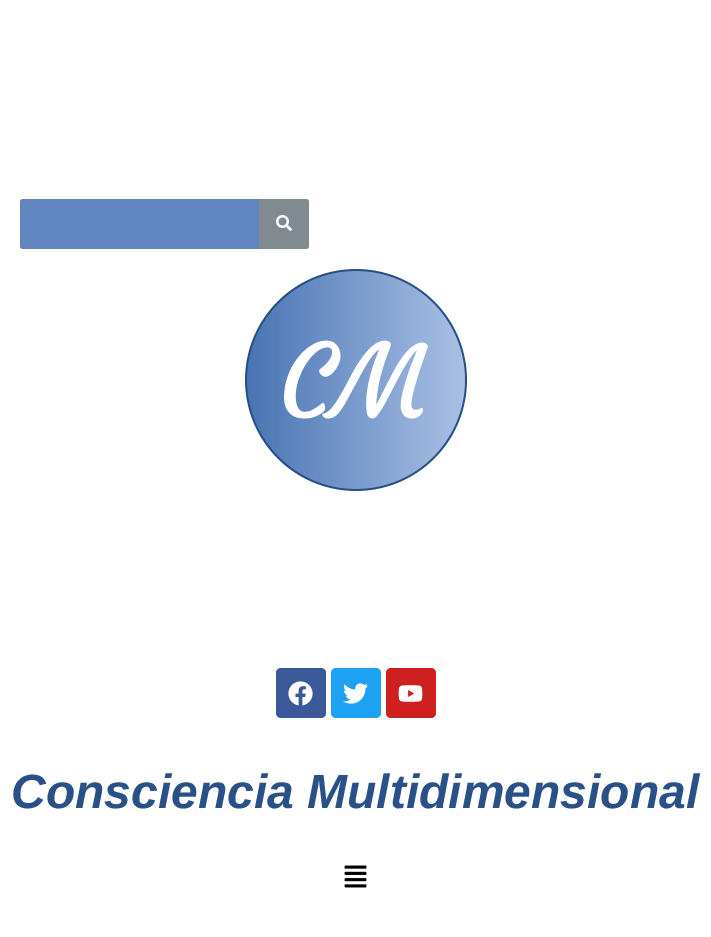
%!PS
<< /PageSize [711 937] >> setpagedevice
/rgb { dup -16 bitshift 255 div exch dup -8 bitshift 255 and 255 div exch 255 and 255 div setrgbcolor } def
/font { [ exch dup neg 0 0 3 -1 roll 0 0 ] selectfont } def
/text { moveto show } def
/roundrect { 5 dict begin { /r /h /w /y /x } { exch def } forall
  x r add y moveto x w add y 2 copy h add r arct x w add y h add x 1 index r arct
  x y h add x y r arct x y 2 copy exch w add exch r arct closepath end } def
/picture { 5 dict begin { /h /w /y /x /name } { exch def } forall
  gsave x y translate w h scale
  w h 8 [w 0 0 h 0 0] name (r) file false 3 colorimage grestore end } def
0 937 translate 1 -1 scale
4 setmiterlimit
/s1 { /LiberationSans-BoldItalic 48 font 16#295188 rgb } def
16#FFFFFF rgb
0 0 711 937 rectfill
16#5F86BE rgb
23 199 moveto 259 199 lineto 259 249 lineto 23 249 lineto 21.5 249 20 247.5 20 246 curveto 20 202 lineto 20 200.5 21.5 199 23 199 curveto closepath fill
16#818A91 rgb
259 199 moveto 306 199 lineto 307.5 199 309 200.5 309 202 curveto 309 246 lineto 309 247.5 307.5 249 306 249 curveto 259 249 lineto closepath fill
(pic1.raw) 276 215 16 16 picture
(pic2.raw) 245 269 222 222 picture
16#3B5998 rgb
276 668 50 50 5 roundrect fill
(pic3.raw) 288 681 25 25 picture
16#1DA1F2 rgb
331 668 50 50 5 roundrect fill
(pic4.raw) 343 683 25 21 picture
16#CD201F rgb
386 668 50 50 5 roundrect fill
(pic5.raw) 398 685 25 17 picture
s1
(Consciencia Multidimensional) 11 808 text
(pic6.raw) 344 865 23 23 picture
showpage
